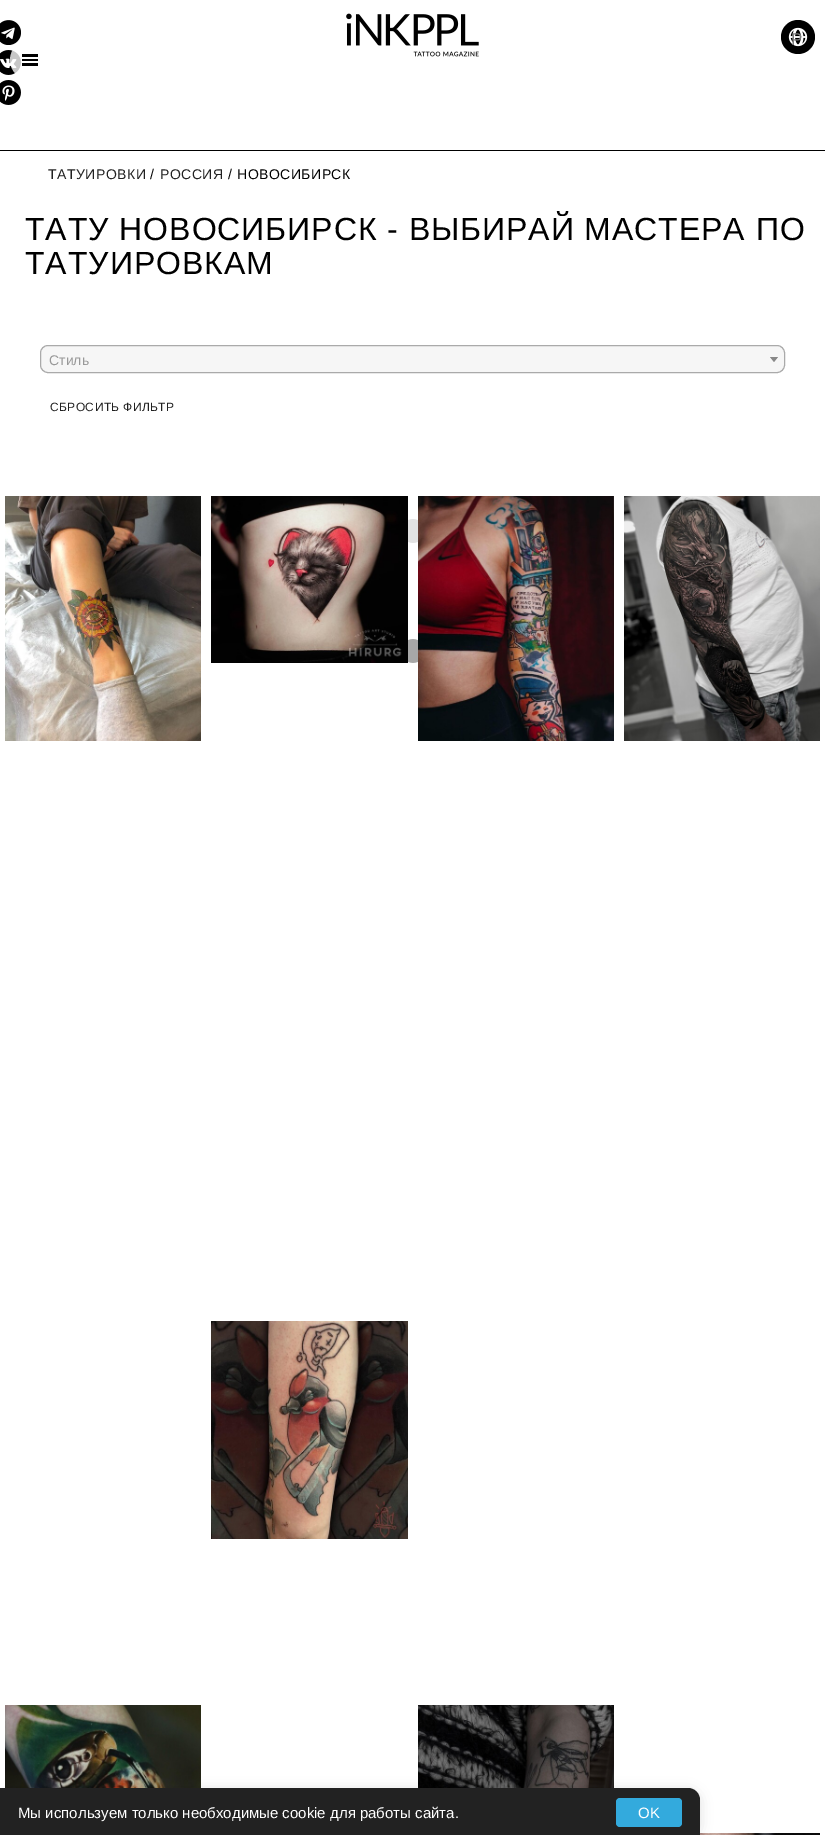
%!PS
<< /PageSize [825 1835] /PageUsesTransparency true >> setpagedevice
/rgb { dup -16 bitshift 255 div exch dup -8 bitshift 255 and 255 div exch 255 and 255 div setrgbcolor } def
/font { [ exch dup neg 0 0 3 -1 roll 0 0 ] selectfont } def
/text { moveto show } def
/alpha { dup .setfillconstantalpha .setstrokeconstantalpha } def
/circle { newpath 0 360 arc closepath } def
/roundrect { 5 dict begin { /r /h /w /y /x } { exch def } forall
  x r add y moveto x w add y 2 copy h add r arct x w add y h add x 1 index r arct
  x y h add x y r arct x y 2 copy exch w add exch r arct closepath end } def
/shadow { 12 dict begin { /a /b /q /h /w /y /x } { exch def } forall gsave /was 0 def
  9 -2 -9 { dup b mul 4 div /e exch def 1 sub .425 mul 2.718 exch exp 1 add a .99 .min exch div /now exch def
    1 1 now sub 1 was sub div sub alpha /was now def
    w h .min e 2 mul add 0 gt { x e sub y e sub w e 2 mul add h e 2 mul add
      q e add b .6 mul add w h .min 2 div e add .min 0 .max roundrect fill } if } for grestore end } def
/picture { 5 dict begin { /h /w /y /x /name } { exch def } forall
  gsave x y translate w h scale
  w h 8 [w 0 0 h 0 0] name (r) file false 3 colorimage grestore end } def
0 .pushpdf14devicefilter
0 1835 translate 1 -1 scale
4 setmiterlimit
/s1 { /LiberationSans-Regular 17 font 16#7D7D7D rgb } def
/s2 { /LiberationSans-Regular 14 font 16#999999 rgb } def
/s3 { /LiberationSans-Regular 15 font 16#FFFFFF rgb } def
16#FFFFFF rgb
0 0 825 1835 rectfill
16#000000 rgb
0 150 825 1 rectfill
(pic1.raw) 0 20 21 25 picture
(pic2.raw) 0 50 21 25 picture
(pic3.raw) 0 80 21 25 picture
0.78 alpha
16#FFFFFF rgb
30 60 20 circle fill
1 alpha
16#000000 rgb
22 63 16 3 rectfill
22 59 16 2 rectfill
22 54 16 3 rectfill
(pic4.raw) 346 13 133 44 picture
798 37 17 circle fill
(pic5.raw) 788 27 20 20 picture
s1
(Р) 791 45 text
/LiberationSans-Regular 14 font
16#212121 rgb
48 179 moveto 0.5 0 (ТАТУИРОВКИ) ashow
16#000000 rgb
150 179 moveto 0.5 0 (/) ashow
16#212121 rgb
160 179 moveto 0.5 0 (РОССИЯ) ashow
16#000000 rgb
228 179 moveto 0.5 0 (/) ashow
237 179 moveto 0.5 0 (НОВОСИБИРСК) ashow
/LiberationSans-Regular 32 font
25 240 moveto 0.95 0 (ТАТУ НОВОСИБИРСК - ВЫБИРАЙ МАСТЕРА ПО) ashow
25 274 moveto 0.95 0 (ТАТУИРОВКАМ) ashow
16#F6F6F6 rgb
40.5 345.5 744 27 7.5 roundrect gsave fill grestore
16#AAAAAA rgb
stroke
s2
(Стиль) 49 365 text
16#888888 rgb
770 357 moveto 778 357 lineto 774 362 lineto closepath fill
/LiberationSans-Regular 12 font
16#212121 rgb
50 411 moveto 0.4 0 (СБРОСИТЬ ФИЛЬТР) ashow
(pic6.raw) 5 496 196 245 picture
(pic7.raw) 211 496 197 167 picture
(pic8.raw) 408 519 10 144 picture
(pic9.raw) 418 496 196 245 picture
(pic10.raw) 624 496 196 245 picture
(pic11.raw) 211 1321 197 218 picture
(pic12.raw) 5 1705 196 83 picture
(pic13.raw) 418 1705 196 83 picture
(pic14.raw) 700 1833 120 2 picture
16#000000 rgb
0 1790 700 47 12 6 0.12 shadow
16#222222 rgb
0 1788 moveto 688 1788 lineto 694.5 1788 700 1793.5 700 1800 curveto 700 1835 lineto 0 1835 lineto closepath fill
s3
(Мы используем только необходимые cookie для работы сайта.) 18 1818 text
16#33AADD rgb
616 1798 66 29 4 roundrect fill
s3
(OK) 638 1818 text
.poppdf14devicefilter showpage
